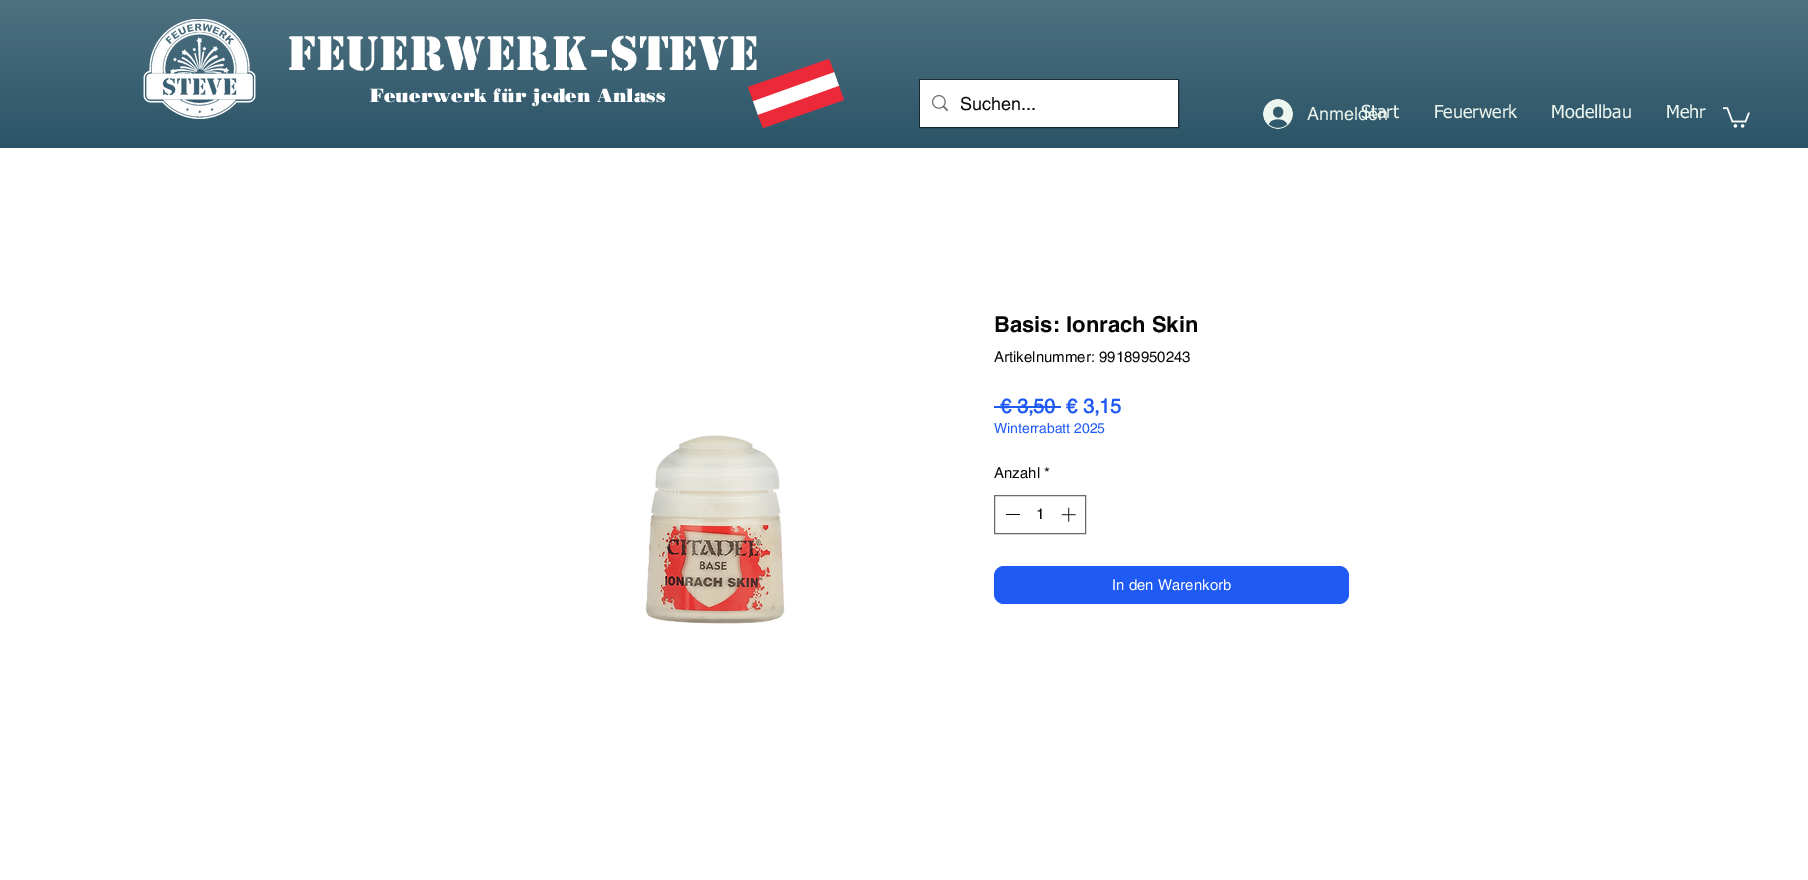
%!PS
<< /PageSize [1808 880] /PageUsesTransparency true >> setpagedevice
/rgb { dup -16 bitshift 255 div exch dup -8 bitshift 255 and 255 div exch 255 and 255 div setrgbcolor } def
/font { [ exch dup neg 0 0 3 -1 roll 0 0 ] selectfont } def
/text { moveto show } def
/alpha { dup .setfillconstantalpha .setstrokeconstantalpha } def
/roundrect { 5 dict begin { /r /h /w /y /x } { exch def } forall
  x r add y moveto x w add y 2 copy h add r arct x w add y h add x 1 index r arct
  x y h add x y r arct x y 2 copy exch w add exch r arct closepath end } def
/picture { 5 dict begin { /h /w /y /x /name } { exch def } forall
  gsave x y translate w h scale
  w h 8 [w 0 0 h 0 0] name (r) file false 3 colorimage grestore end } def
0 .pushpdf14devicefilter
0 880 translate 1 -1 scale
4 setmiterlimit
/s1 { /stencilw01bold-Bold 45 font 16#FFFFFF rgb } def
/s2 { /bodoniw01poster-Black 19 font 16#FFFFFF rgb } def
/s3 { /helvetica-Regular 18 font 16#070709 rgb } def
/s4 { /helvetica-Regular 18 font 16#ECF5EE rgb } def
/s5 { /tahoma-Regular 18 font 16#ECF5EE rgb } def
/s6 { /helvetica-Bold 22 font 16#070709 rgb } def
/s7 { /helvetica-Regular 15 font 16#070709 rgb } def
/s8 { /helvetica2-Bold 20 font 16#205AF4 rgb } def
/s9 { /helvetica-Regular 14 font 16#205AF4 rgb } def
/s10 { /helvetica-Regular 15 font 16#FFFFFF rgb } def
16#FFFFFF rgb
0 0 1808 880 rectfill
16#103F54 rgb
0 0 1808 148 rectfill
(pic1.raw) 0 0 1808 148 picture
(pic2.raw) 143 19 113 100 picture
s1
(Feuerwerk-Steve) 287 70 text
s2
(Feuerwerk für jeden Anlass) 370 102 text
834 72 moveto 790 83 lineto 753 101 lineto 758 115 lineto 797 106 lineto 839 86 lineto closepath fill
16#EC2938 rgb
829 59 moveto 834 72 lineto 753 101 lineto 748 87 lineto closepath fill
839 86 moveto 844 100 lineto 763 128 lineto 758 115 lineto closepath fill
0.6 alpha
16#070709 rgb
919.5 79.5 259 48 rectstroke
1 alpha
16#FFFFFF rgb
920 80 258 47 rectfill
(pic3.raw) 932 95 16 17 picture
s3
(Suchen...) 960 110 text
(pic4.raw) 1263 99 30 30 picture
s4
(Anmelden) 1307 120 text
s5
(Start) 1361 118 text
(Feuerwerk) 1434 118 text
(Modellbau) 1551 118 text
(Mehr) 1666 118 text
(pic5.raw) 1723 107 27 21 picture
(pic6.raw) 645 435 140 189 picture
s6
(Basis: Ionrach Skin) 994 332 text
s7
(Artikelnummer: 99189950243) 994 362 text
s8
(€ 3,50) 1000 413 text
994 406 67 2 rectfill
(€ 3,15) 1066 413 text
s9
(Winterrabatt 2025) 994 433 text
s7
(Anzahl *) 994 478 text
16#6A6A6B rgb
994.5 495.5 91 38 rectstroke
16#070709 rgb
1006 514 14 1 rectfill
(1) 1036 519 text
(pic7.raw) 1061 507 15 15 picture
16#205AF4 rgb
994 566 355 38 10 roundrect fill
s10
(In den Warenkorb) 1112 590 text
.poppdf14devicefilter showpage
